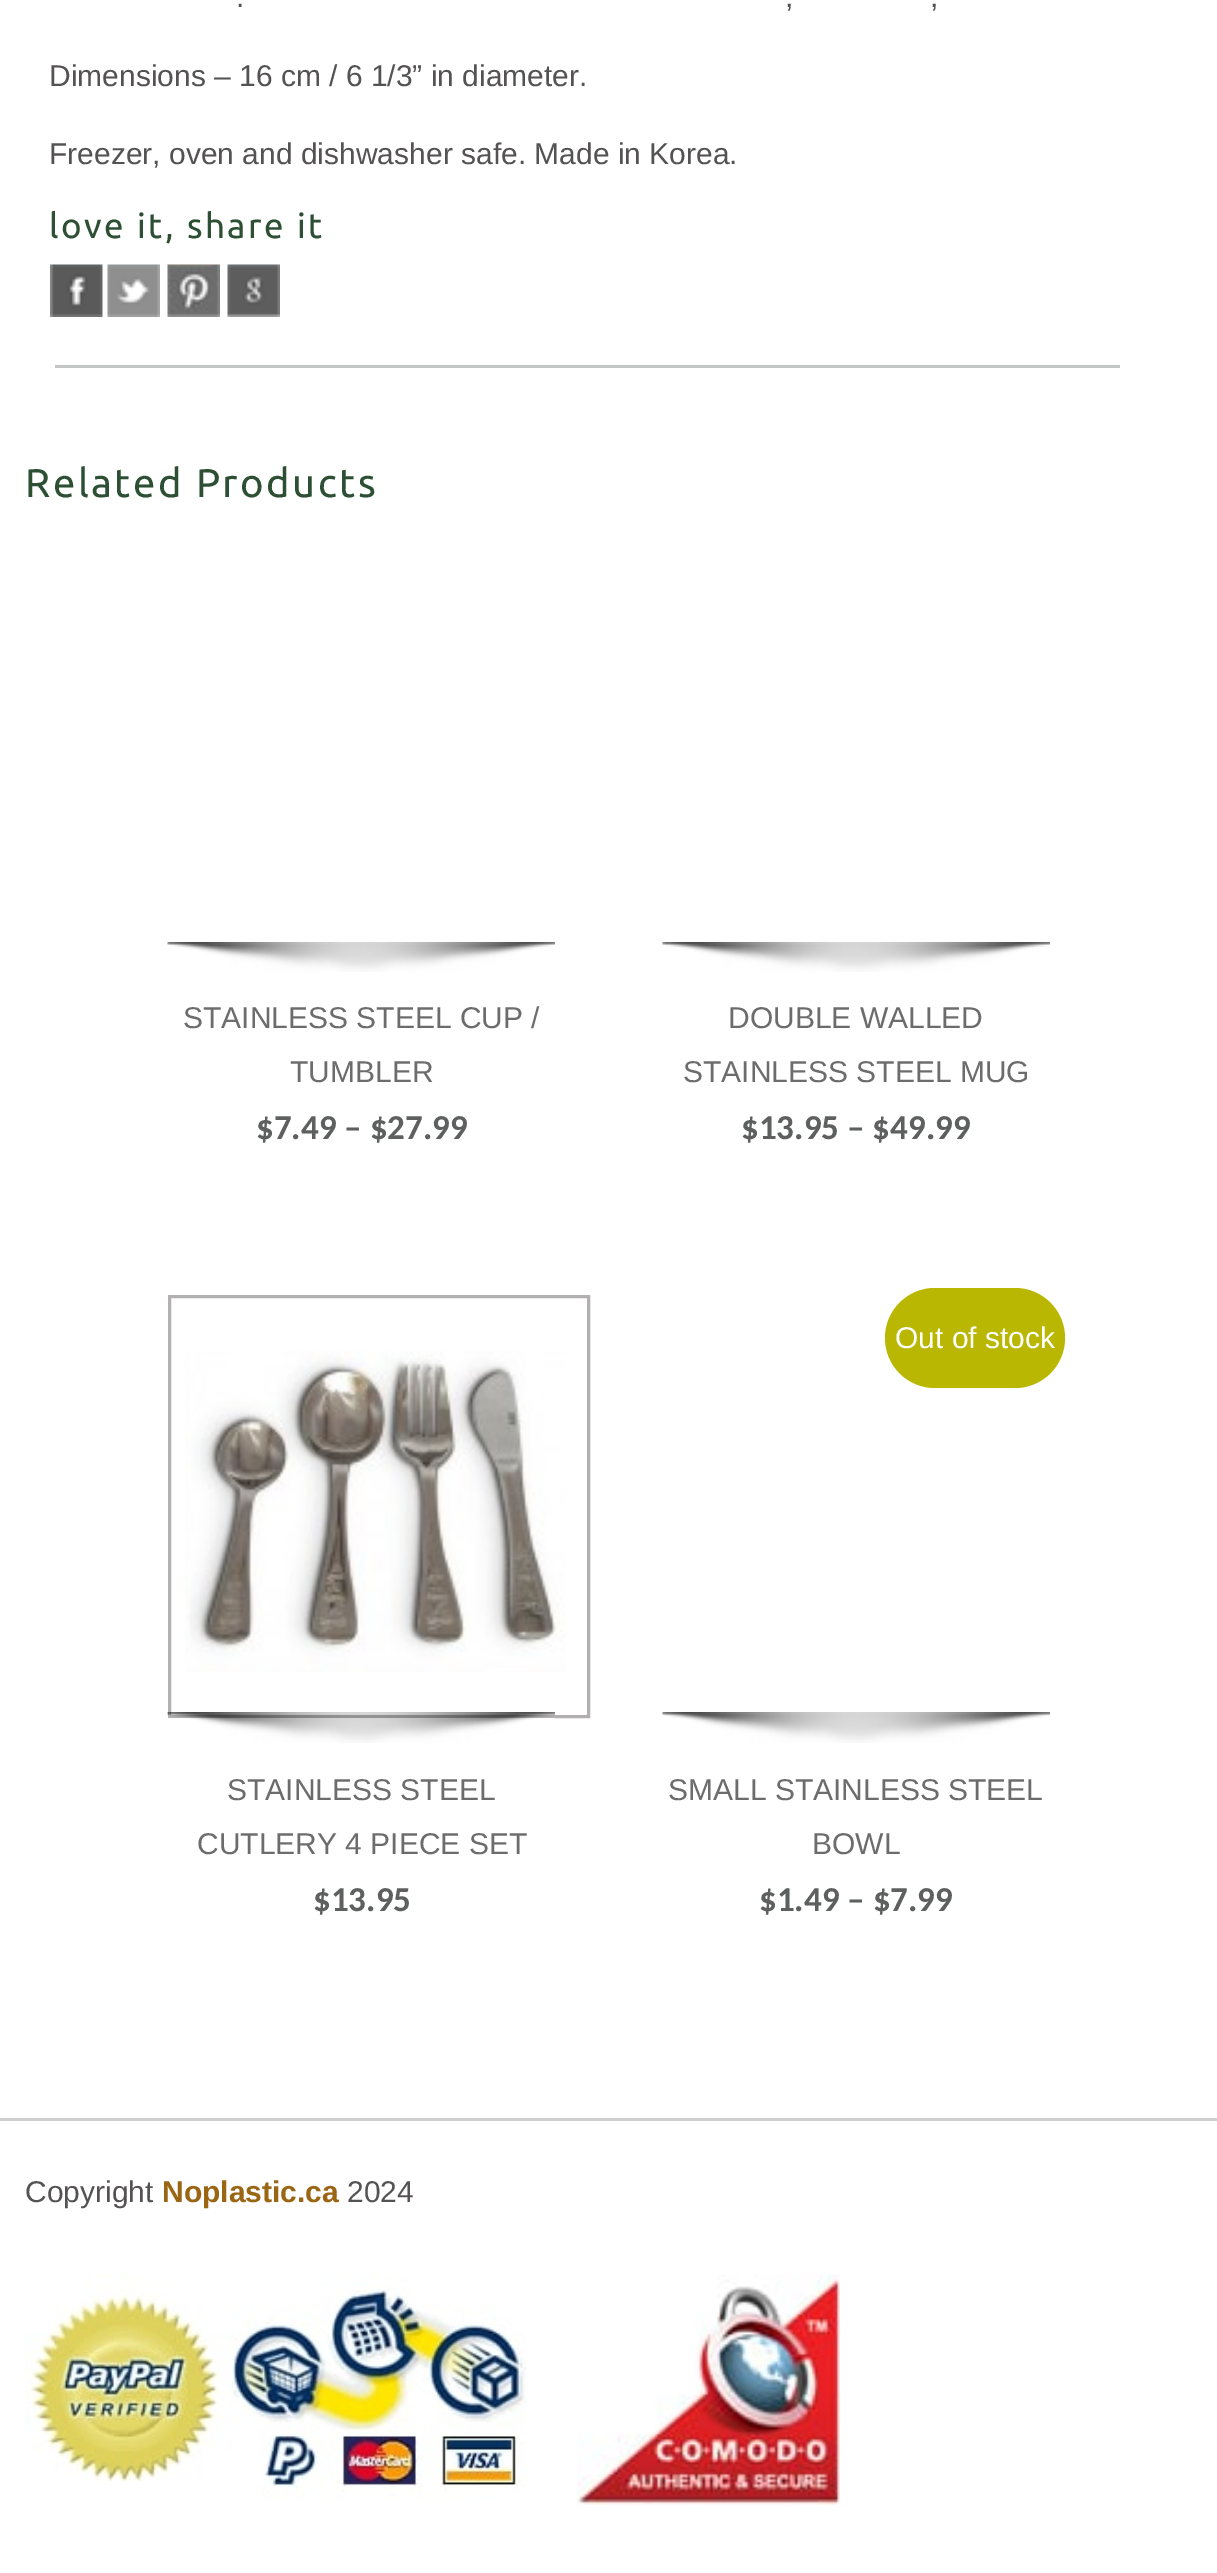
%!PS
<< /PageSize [1217 2573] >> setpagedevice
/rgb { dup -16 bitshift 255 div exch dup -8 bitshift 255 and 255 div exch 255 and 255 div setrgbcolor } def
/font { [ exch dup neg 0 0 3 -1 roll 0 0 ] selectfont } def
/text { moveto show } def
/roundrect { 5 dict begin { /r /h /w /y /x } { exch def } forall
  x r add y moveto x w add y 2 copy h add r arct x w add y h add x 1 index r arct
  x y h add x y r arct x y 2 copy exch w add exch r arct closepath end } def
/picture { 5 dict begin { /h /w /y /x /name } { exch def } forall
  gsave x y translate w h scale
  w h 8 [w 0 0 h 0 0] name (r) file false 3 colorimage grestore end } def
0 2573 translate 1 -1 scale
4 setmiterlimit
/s1 { /LiberationSans-Regular 30 font 16#545252 rgb } def
/s2 { /LiberationSans-Regular 30 font 16#6C6C6C rgb } def
/s3 { /Carlito-Bold 35 font 16#5E6060 rgb } def
/s4 { /LiberationSans-Regular 30 font 16#FFFFFF rgb } def
/s5 { /LiberationSans-Bold 30 font 16#9A6614 rgb } def
16#FFFFFF rgb
0 0 1217 2573 rectfill
16#C4C5C5 rgb
55 365 1065 3 rectfill
s1
(.) 236 7 text
(,) 785 7 text
(,) 930 7 text
(Dimensions – 16 cm / 6 1/3” in diameter.) 49 86 text
(Freezer, oven and dishwasher safe. Made in Korea.) 49 164 text
/Ubuntu-Regular 35 font
16#2D5034 rgb
49 238 moveto 2.5 0 (love it, share it) ashow
(pic1.raw) 50 264 53 53 picture
(pic2.raw) 107 264 53 53 picture
(pic3.raw) 167 264 53 53 picture
(pic4.raw) 227 264 53 53 picture
/Ubuntu-Regular 40 font
25 497 moveto 2.5 0 (Related Products) ashow
(pic5.raw) 167 942 388 30 picture
s2
(STAINLESS STEEL CUP /) 183 1028 text
(TUMBLER) 290 1082 text
s3
($7.49 – $27.99) 256 1139 text
(pic5.raw) 662 942 388 30 picture
s2
(DOUBLE WALLED) 728 1028 text
(STAINLESS STEEL MUG) 683 1082 text
s3
($13.95 – $49.99) 741 1139 text
16#B2B0B0 rgb
3 setlinewidth
169.5 1296.5 419 420 rectstroke
(pic6.raw) 185 1351 380 321 picture
(pic7.raw) 167 1712 388 31 picture
s2
(STAINLESS STEEL) 227 1800 text
(CUTLERY 4 PIECE SET) 197 1854 text
s3
($13.95) 313 1911 text
16#B9B701 rgb
885 1288 180 100 50 roundrect fill
s4
(Out of stock) 895 1348 text
(pic8.raw) 662 1712 388 31 picture
s2
(SMALL STAINLESS STEEL) 668 1800 text
(BOWL) 812 1854 text
s3
($1.49 – $7.99) 759 1911 text
16#CFCFCF rgb
0 2118 1217 3 rectfill
s1
(Copyright) 25 2202 text
s5
(Noplastic.ca) 162 2202 text
s1
(2024) 347 2202 text
(pic9.raw) 25 2274 501 226 picture
(pic10.raw) 577 2274 263 231 picture
showpage
